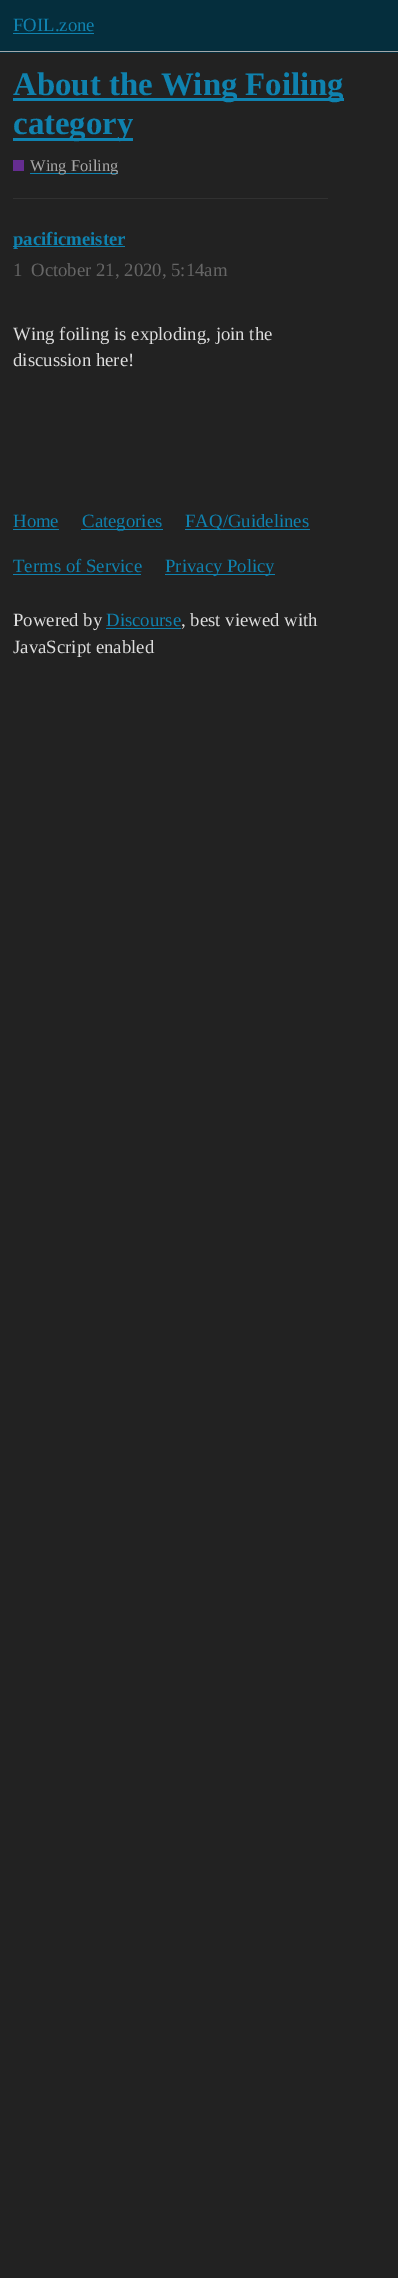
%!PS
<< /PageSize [398 2278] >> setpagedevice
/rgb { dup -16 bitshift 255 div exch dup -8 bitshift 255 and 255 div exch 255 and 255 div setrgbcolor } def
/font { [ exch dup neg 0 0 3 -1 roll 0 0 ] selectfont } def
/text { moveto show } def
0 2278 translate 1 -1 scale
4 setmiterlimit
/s1 { /LiberationSerif-Regular 18.75 font 16#0F82AF rgb } def
/s2 { /LiberationSerif-Bold 32.8 font 16#0F82AF rgb } def
/s3 { /LiberationSerif-Regular 16.5 font 16#A6A6A6 rgb } def
/s4 { /LiberationSerif-Bold 18.75 font 16#0F82AF rgb } def
/s5 { /LiberationSerif-Regular 18.75 font 16#666666 rgb } def
/s6 { /LiberationSerif-Regular 18.75 font 16#DDDDDD rgb } def
16#222222 rgb
0 0 398 2278 rectfill
16#052E3D rgb
0 0 398 53 rectfill
16#A4A7A9 rgb
0 51 398 1 rectfill
s1
(FOIL.zone) 13 31 text
13 33 81 1 rectfill
13 98 331 3 rectfill
s2
(About the Wing Foiling) 13 95 text
13 138 120 3 rectfill
(category) 13 134 text
16#652D90 rgb
13 160 11 11 rectfill
16#0F82AF rgb
30 173 88 1 rectfill
s3
(Wing Foiling) 30 171 text
16#313131 rgb
13 198 315 1 rectfill
16#0F82AF rgb
13 246 112 1 rectfill
s4
(pacificmeister) 13 245 text
s5
(1) 13 276 text
(October 21, 2020, 5:14am) 31 276 text
s6
(Wing foiling is exploding, join the) 13 340 text
(discussion here!) 13 366 text
s1
(Home) 13 527 text
13 529 46 1 rectfill
81 529 82 1 rectfill
(Categories) 82 527 text
185 529 125 1 rectfill
(FAQ/Guidelines) 185 527 text
(Terms of Service) 13 572 text
13 574 128 1 rectfill
165 574 110 1 rectfill
(Privacy Policy) 165 572 text
s6
(Powered by) 13 626 text
s1
(Discourse) 106 626 text
106 628 75 1 rectfill
s6
(, best viewed with) 181 626 text
(JavaScript enabled) 13 653 text
showpage
